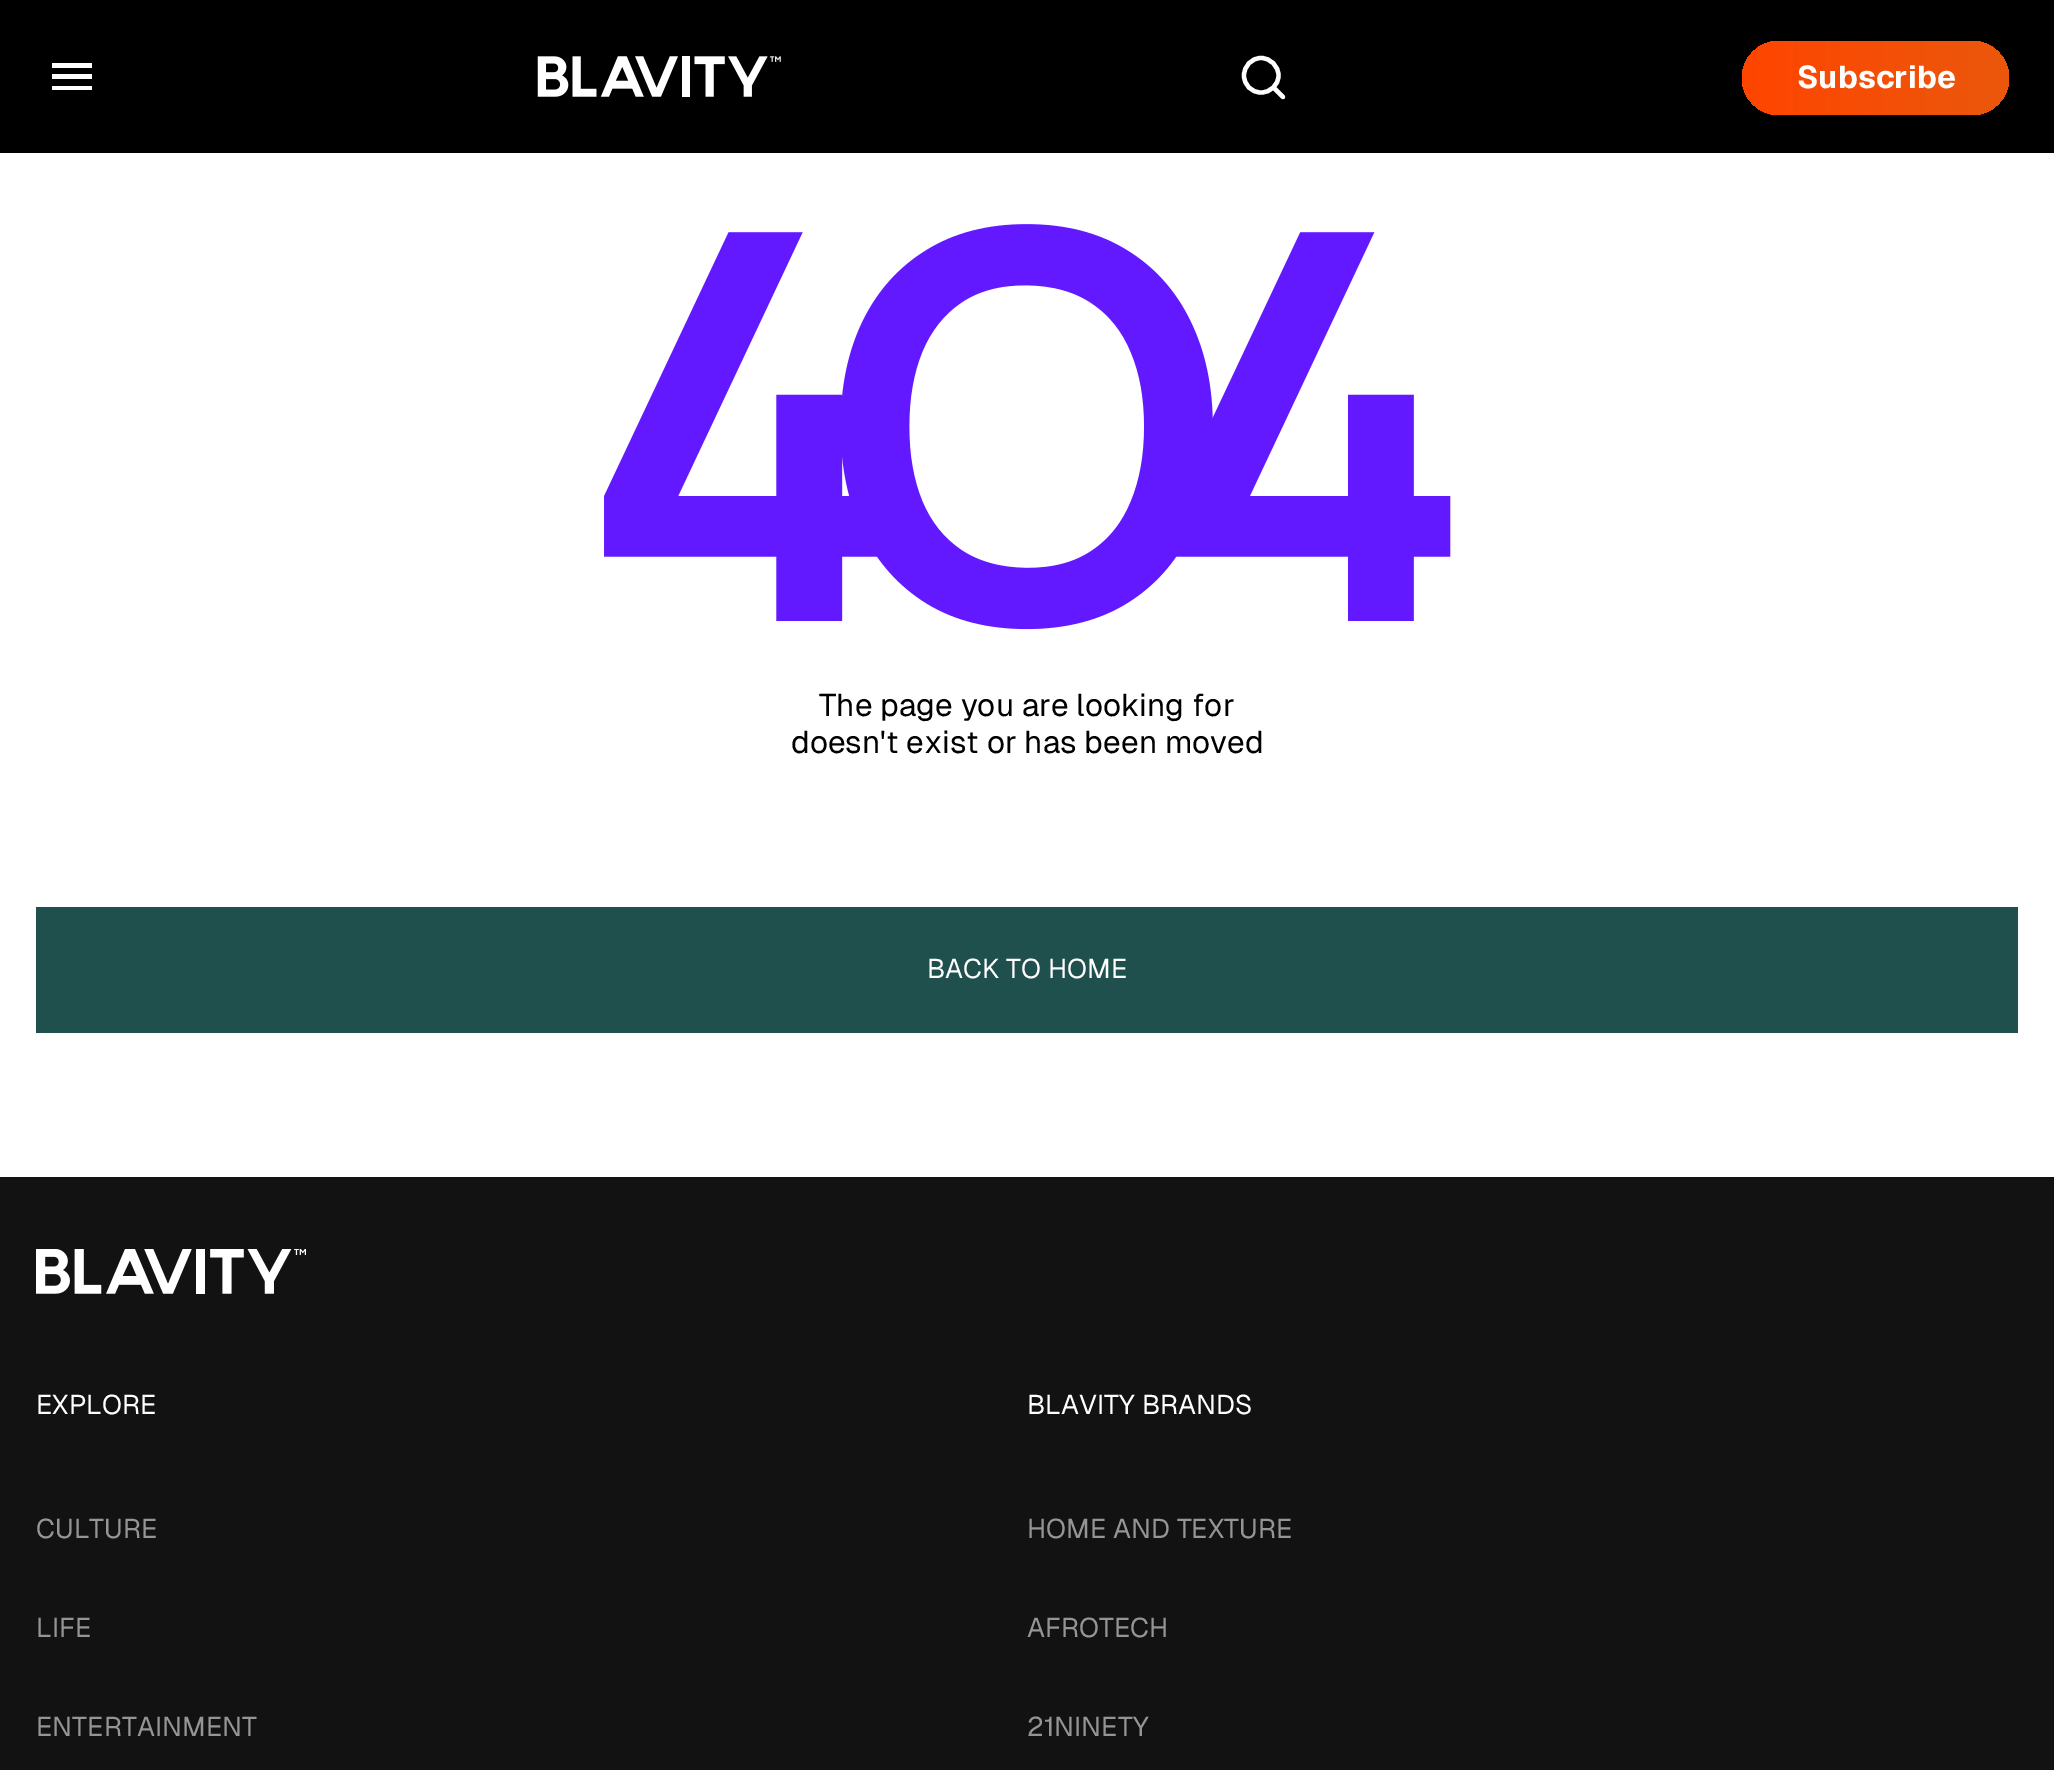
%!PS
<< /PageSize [2054 1770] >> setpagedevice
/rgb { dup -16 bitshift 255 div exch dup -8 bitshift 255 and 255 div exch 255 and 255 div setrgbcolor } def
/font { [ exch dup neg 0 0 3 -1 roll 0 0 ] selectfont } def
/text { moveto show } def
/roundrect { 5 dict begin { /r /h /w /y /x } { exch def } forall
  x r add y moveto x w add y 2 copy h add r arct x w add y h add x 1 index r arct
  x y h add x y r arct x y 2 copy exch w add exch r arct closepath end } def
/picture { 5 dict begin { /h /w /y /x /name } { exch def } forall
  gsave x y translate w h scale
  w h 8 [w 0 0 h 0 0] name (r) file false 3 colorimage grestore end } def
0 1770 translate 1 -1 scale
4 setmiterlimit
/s1 { /Geist-Bold 31.5 font 16#FFFFFF rgb } def
/s2 { /Geist-Regular 31.5 font 16#000000 rgb } def
/s3 { /Geist-Regular 27 font 16#FFFFFF rgb } def
/s4 { /Geist-Regular 27 font 16#949596 rgb } def
16#FFFFFF rgb
0 0 2054 1770 rectfill
16#000000 rgb
0 0 2054 153 rectfill
16#FFFFFF rgb
52 90 moveto 92 90 lineto 92 86 lineto 52 86 lineto closepath 52 79 moveto 92 79 lineto 92 74 lineto 52 74 lineto closepath 52 63 moveto 52 68 lineto 92 68 lineto 92 63 lineto closepath fill
(pic1.raw) 537 56 244 41 picture
4.3 setlinewidth
1 setlinecap
1 setlinejoin
1283 97 moveto 1273.5 87.5 lineto 1278.5 75.5 moveto 1278.5 85 1270.5 92.5 1261 92.5 curveto 1251.5 92.5 1244 85 1244 75.5 curveto 1244 66 1251.5 58 1261 58 curveto 1270.5 58 1278.5 66 1278.5 75.5 curveto closepath stroke
gsave 1742 41 267 74 37 roundrect clip newpath
<< /ShadingType 2 /ColorSpace /DeviceRGB /Coords [1742 78 2009 78] /Extend [true true] /Function << /FunctionType 2 /Domain [0 1] /C0 [1 0.271 0] /C1 [0.918 0.345 0.047] /N 1 >> >> shfill grestore
s1
(Subscribe) 1797 88 text
(pic2.raw) 604 224 847 406 picture
s2
(The page you are looking for) 819 716 text
(doesn't exist or has been moved) 791 753 text
16#1F504D rgb
36 907 1982 126 rectfill
s3
(BACK TO HOME) 927 978 text
16#121212 rgb
0 1177 2054 593 rectfill
(pic3.raw) 36 1249 270 45 picture
s3
(EXPLORE) 36 1414 text
s4
(CULTURE) 36 1538 text
(LIFE) 36 1637 text
(ENTERTAINMENT) 36 1736 text
s3
(BLAVITY BRANDS) 1027 1414 text
s4
(HOME AND TEXTURE) 1027 1538 text
(AFROTECH) 1027 1637 text
(21NINETY) 1027 1736 text
showpage
